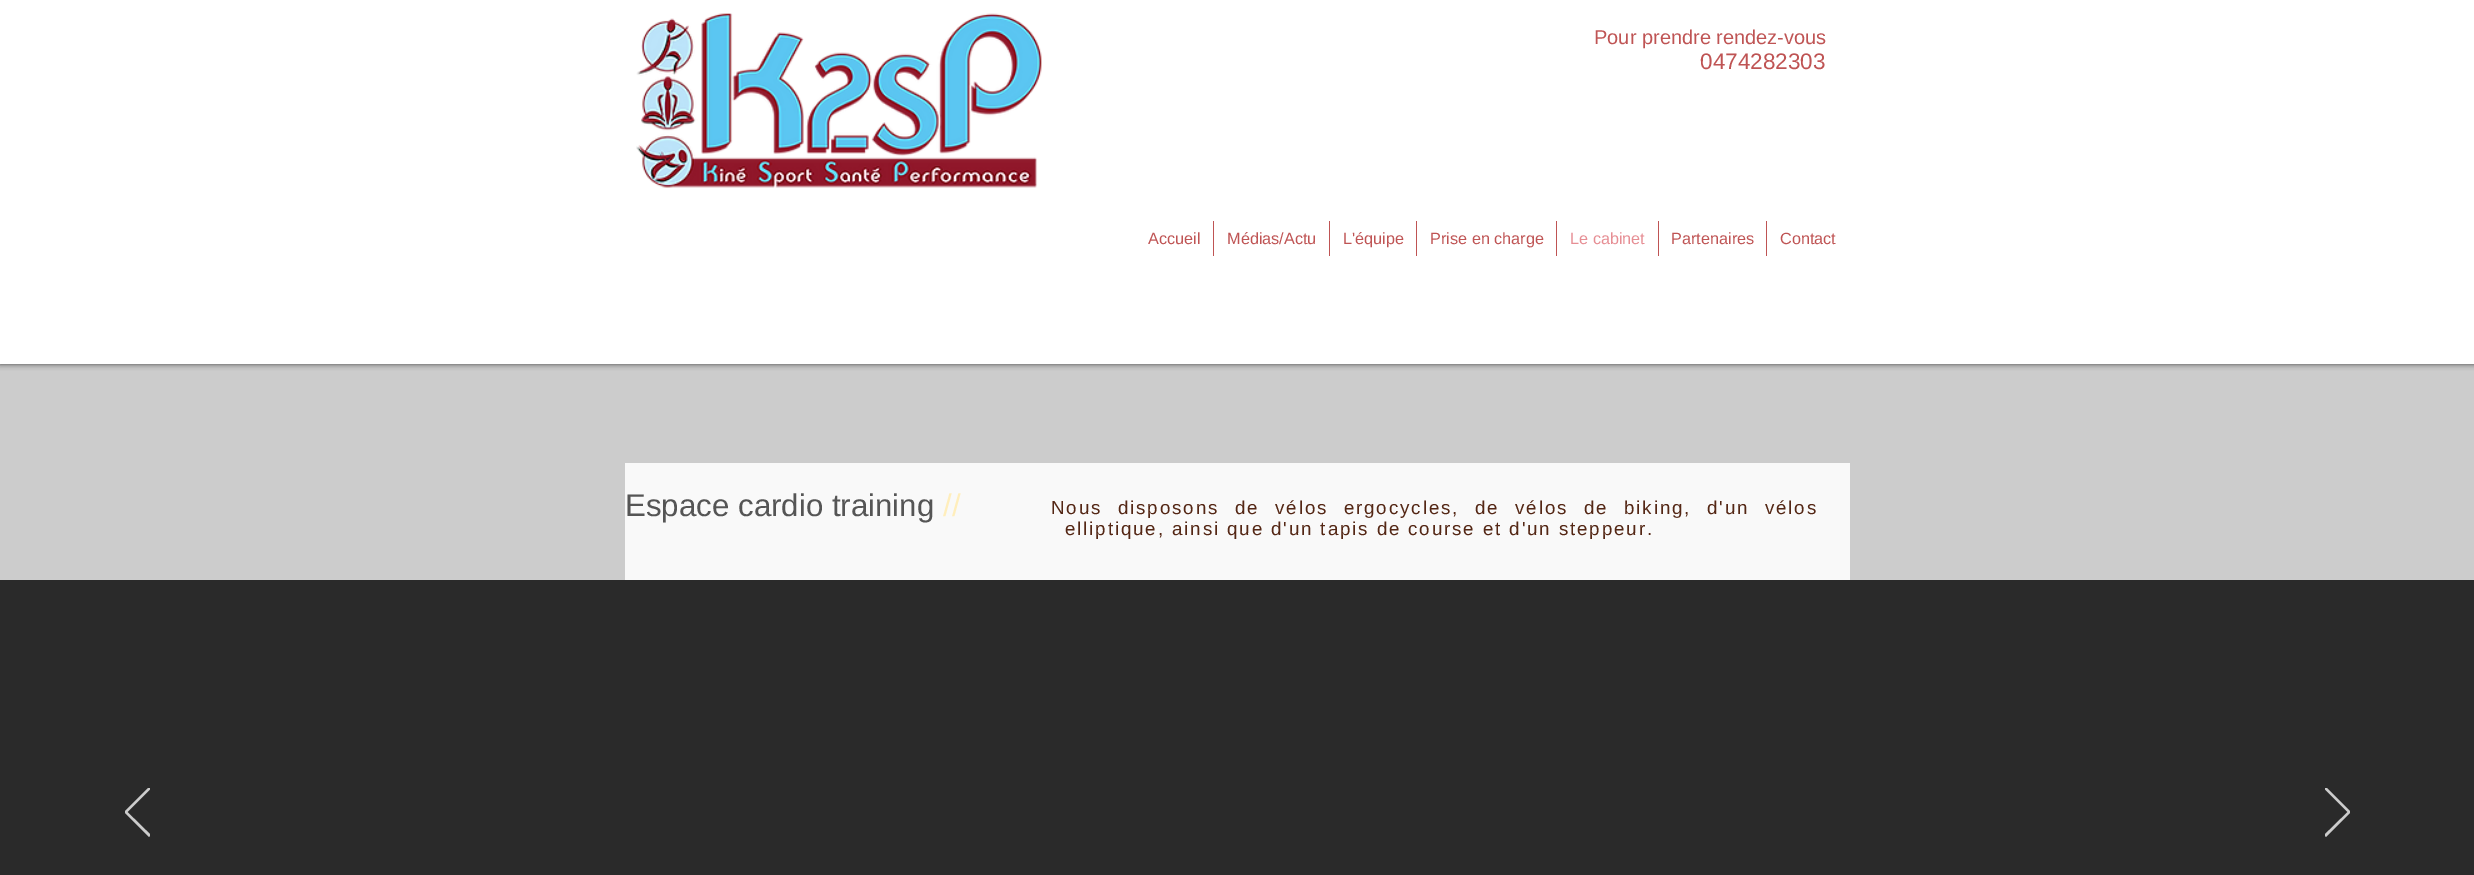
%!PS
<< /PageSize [2474 875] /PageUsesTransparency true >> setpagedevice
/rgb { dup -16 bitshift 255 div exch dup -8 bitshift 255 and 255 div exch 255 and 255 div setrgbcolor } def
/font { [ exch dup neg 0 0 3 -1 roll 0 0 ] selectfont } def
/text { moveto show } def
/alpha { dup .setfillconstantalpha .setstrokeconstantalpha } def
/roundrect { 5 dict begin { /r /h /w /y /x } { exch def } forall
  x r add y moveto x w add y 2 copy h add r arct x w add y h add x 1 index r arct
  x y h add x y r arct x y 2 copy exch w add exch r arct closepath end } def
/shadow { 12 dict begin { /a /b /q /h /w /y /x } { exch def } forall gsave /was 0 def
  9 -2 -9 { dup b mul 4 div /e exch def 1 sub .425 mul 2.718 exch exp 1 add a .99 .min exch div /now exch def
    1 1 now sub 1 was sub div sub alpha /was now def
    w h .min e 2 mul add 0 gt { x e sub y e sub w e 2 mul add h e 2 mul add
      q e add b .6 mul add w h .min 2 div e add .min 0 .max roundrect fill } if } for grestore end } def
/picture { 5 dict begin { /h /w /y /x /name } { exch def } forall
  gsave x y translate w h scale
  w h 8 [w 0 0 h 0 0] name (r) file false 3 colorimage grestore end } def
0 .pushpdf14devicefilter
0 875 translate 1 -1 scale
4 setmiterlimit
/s1 { /LiberationSans-Regular 20 font 16#BF5454 rgb } def
/s2 { /LiberationSans-Regular 22.5 font 16#BF5454 rgb } def
/s3 { /LiberationSans-Regular 16.25 font 16#BF5454 rgb } def
/s4 { /LiberationSans-Regular 16.25 font 16#E68E94 rgb } def
/s5 { /LiberationSans-Regular 31.25 font 16#555555 rgb } def
/s6 { /LiberationSans-Regular 31.25 font 16#FFEEBC rgb } def
16#CCCCCC rgb
0 0 2474 875 rectfill
16#000000 rgb
0 0 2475 364 0 3 0.7 shadow
16#FFFFFF rgb
0 0 2474 364 rectfill
(pic1.raw) 636 13 406 175 picture
s1
(Pour prendre rendez-vous) 1594 44 text
s2
(0474282303) 1700 69 text
s3
(Accueil) 1148 244 text
1213 221 1 35 rectfill
(Médias/Actu) 1227 244 text
1329 221 1 35 rectfill
(L'équipe) 1343 244 text
1416 221 1 35 rectfill
(Prise en charge) 1430 244 text
1556 221 1 35 rectfill
s4
(Le cabinet) 1570 244 text
16#BF5454 rgb
1658 221 1 35 rectfill
(Partenaires) 1671 244 text
1766 221 1 35 rectfill
(Contact) 1780 244 text
16#F9F9F9 rgb
625 463 1225 117 rectfill
s5
(Espace cardio training) 625 516 text
s6
(//) 943 516 text
/LiberationSans-Regular 18.75 font
16#542715 rgb
1051 514 moveto 8.5 0 32 1.88 0 (Nous disposons de vélos ergocycles, de vélos de biking, d'un vélos) awidthshow
1065 535 moveto 1.88 0 (elliptique, ainsi que d'un tapis de course et d'un steppeur.) ashow
16#2A2A2A rgb
0 580 2474 295 rectfill
gsave
125 788 25 50 rectclip
16#CCCCCC rgb
1.2 setlinewidth
149 836 moveto 125 812 lineto 149 788 lineto 150 788.5 lineto 126.5 812 lineto 150 835 lineto closepath stroke
grestore
gsave
2325 788 25 50 rectclip
16#CCCCCC rgb
1.2 setlinewidth
2326 836 moveto 2350 812 lineto 2326 788 lineto 2325 788.5 lineto 2348.5 812 lineto 2325 835 lineto closepath stroke
grestore
.poppdf14devicefilter showpage
